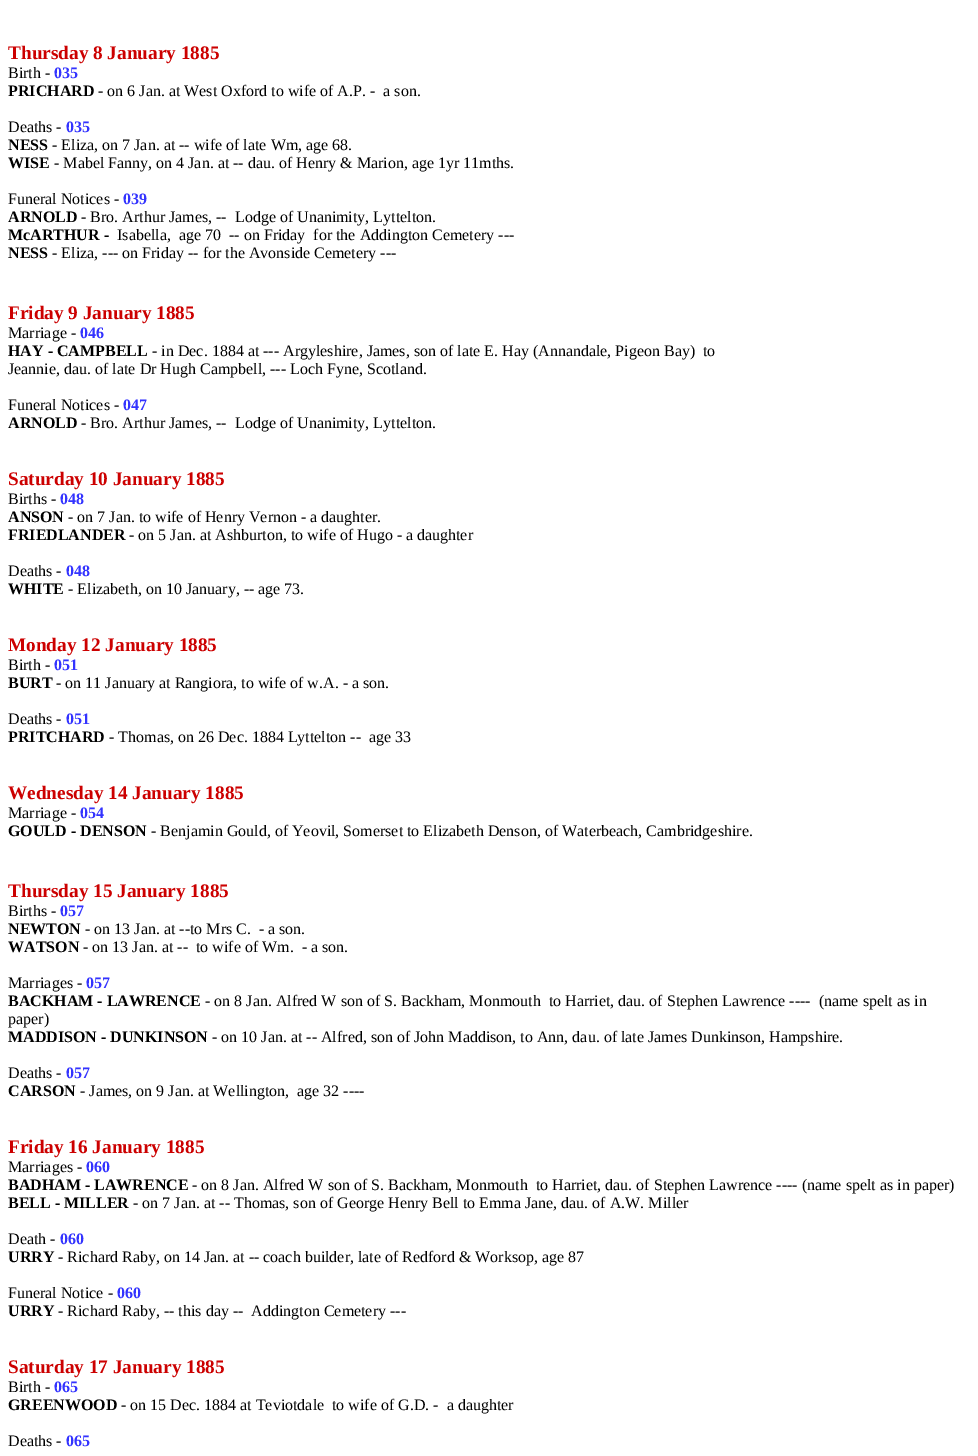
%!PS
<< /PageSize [978 1456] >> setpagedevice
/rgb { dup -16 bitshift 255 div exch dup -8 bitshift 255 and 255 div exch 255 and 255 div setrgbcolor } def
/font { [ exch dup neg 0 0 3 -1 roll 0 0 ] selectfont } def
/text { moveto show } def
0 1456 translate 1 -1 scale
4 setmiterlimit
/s1 { /LiberationSerif-Bold 19.25 font 16#CC0000 rgb } def
/s2 { /LiberationSerif-Regular 16 font 16#000000 rgb } def
/s3 { /LiberationSerif-Bold 16 font 16#3333FF rgb } def
/s4 { /LiberationSerif-Bold 16 font 16#000000 rgb } def
16#FFFFFF rgb
0 0 978 1456 rectfill
s1
(Thursday 8 January 1885) 8 59 text
s2
(Birth -) 8 78 text
s3
(035) 54 78 text
s4
(PRICHARD) 8 96 text
s2
(- on 6 Jan. at West Oxford to wife of A.P. -  a son.) 98 96 text
(Deaths -) 8 132 text
s3
(035) 66 132 text
s4
(NESS) 8 150 text
s2
(- Eliza, on 7 Jan. at -- wife of late Wm, age 68.) 52 150 text
s4
(WISE) 8 168 text
s2
(- Mabel Fanny, on 4 Jan. at -- dau. of Henry & Marion, age 1yr 11mths.) 54 168 text
(Funeral Notices -) 8 204 text
s3
(039) 123 204 text
s4
(ARNOLD) 8 222 text
s2
(- Bro. Arthur James, --  Lodge of Unanimity, Lyttelton.) 81 222 text
s4
(McARTHUR -) 8 240 text
s2
(Isabella,  age 70  -- on Friday  for the Addington Cemetery ---) 117 240 text
s4
(NESS) 8 258 text
s2
(- Eliza, --- on Friday -- for the Avonside Cemetery ---) 52 258 text
s1
(Friday 9 January 1885) 8 319 text
s2
(Marriage -) 8 338 text
s3
(046) 80 338 text
s4
(HAY - CAMPBELL) 8 356 text
s2
(- in Dec. 1884 at --- Argyleshire, James, son of late E. Hay \(Annandale, Pigeon Bay\)  to) 152 356 text
(Jeannie, dau. of late Dr Hugh Campbell, --- Loch Fyne, Scotland.) 8 374 text
(Funeral Notices -) 8 410 text
s3
(047) 123 410 text
s4
(ARNOLD) 8 428 text
s2
(- Bro. Arthur James, --  Lodge of Unanimity, Lyttelton.) 81 428 text
s1
(Saturday 10 January 1885) 8 485 text
s2
(Births -) 8 504 text
s3
(048) 60 504 text
s4
(ANSON) 8 522 text
s2
(- on 7 Jan. to wife of Henry Vernon - a daughter.) 68 522 text
s4
(FRIEDLANDER) 8 540 text
s2
(- on 5 Jan. at Ashburton, to wife of Hugo - a daughter) 129 540 text
(Deaths -) 8 576 text
s3
(048) 66 576 text
s4
(WHITE) 8 594 text
s2
(- Elizabeth, on 10 January, -- age 73.) 68 594 text
s1
(Monday 12 January 1885) 8 651 text
s2
(Birth -) 8 670 text
s3
(051) 54 670 text
s4
(BURT) 8 688 text
s2
(- on 11 January at Rangiora, to wife of w.A. - a son.) 56 688 text
(Deaths -) 8 724 text
s3
(051) 66 724 text
s4
(PRITCHARD) 8 742 text
s2
(- Thomas, on 26 Dec. 1884 Lyttelton --  age 33) 109 742 text
s1
(Wednesday 14 January 1885) 8 799 text
s2
(Marriage -) 8 818 text
s3
(054) 80 818 text
s4
(GOULD - DENSON) 8 836 text
s2
(- Benjamin Gould, of Yeovil, Somerset to Elizabeth Denson, of Waterbeach, Cambridgeshire.) 151 836 text
s1
(Thursday 15 January 1885) 8 897 text
s2
(Births -) 8 916 text
s3
(057) 60 916 text
s4
(NEWTON) 8 934 text
s2
(- on 13 Jan. at --to Mrs C.  - a son.) 85 934 text
s4
(WATSON) 8 952 text
s2
(- on 13 Jan. at --  to wife of Wm.  - a son.) 83 952 text
(Marriages -) 8 988 text
s3
(057) 86 988 text
s4
(BACKHAM - LAWRENCE) 8 1006 text
s2
(- on 8 Jan. Alfred W son of S. Backham, Monmouth  to Harriet, dau. of Stephen Lawrence ----  \(name spelt as in) 205 1006 text
(paper\)) 8 1024 text
s4
(MADDISON - DUNKINSON) 8 1042 text
s2
(- on 10 Jan. at -- Alfred, son of John Maddison, to Ann, dau. of late James Dunkinson, Hampshire.) 212 1042 text
(Deaths -) 8 1078 text
s3
(057) 66 1078 text
s4
(CARSON) 8 1096 text
s2
(- James, on 9 Jan. at Wellington,  age 32 ----) 80 1096 text
s1
(Friday 16 January 1885) 8 1153 text
s2
(Marriages -) 8 1172 text
s3
(060) 86 1172 text
s4
(BADHAM - LAWRENCE) 8 1190 text
s2
(- on 8 Jan. Alfred W son of S. Backham, Monmouth  to Harriet, dau. of Stephen Lawrence ---- \(name spelt as in paper\)) 192 1190 text
s4
(BELL - MILLER) 8 1208 text
s2
(- on 7 Jan. at -- Thomas, son of George Henry Bell to Emma Jane, dau. of A.W. Miller) 133 1208 text
(Death -) 8 1244 text
s3
(060) 60 1244 text
s4
(URRY) 8 1262 text
s2
(- Richard Raby, on 14 Jan. at -- coach builder, late of Redford & Worksop, age 87) 58 1262 text
(Funeral Notice -) 8 1298 text
s3
(060) 117 1298 text
s4
(URRY) 8 1316 text
s2
(- Richard Raby, -- this day --  Addington Cemetery ---) 58 1316 text
s1
(Saturday 17 January 1885) 8 1373 text
s2
(Birth -) 8 1392 text
s3
(065) 54 1392 text
s4
(GREENWOOD) 8 1410 text
s2
(- on 15 Dec. 1884 at Teviotdale  to wife of G.D. -  a daughter) 121 1410 text
(Deaths -) 8 1446 text
s3
(065) 66 1446 text
showpage
